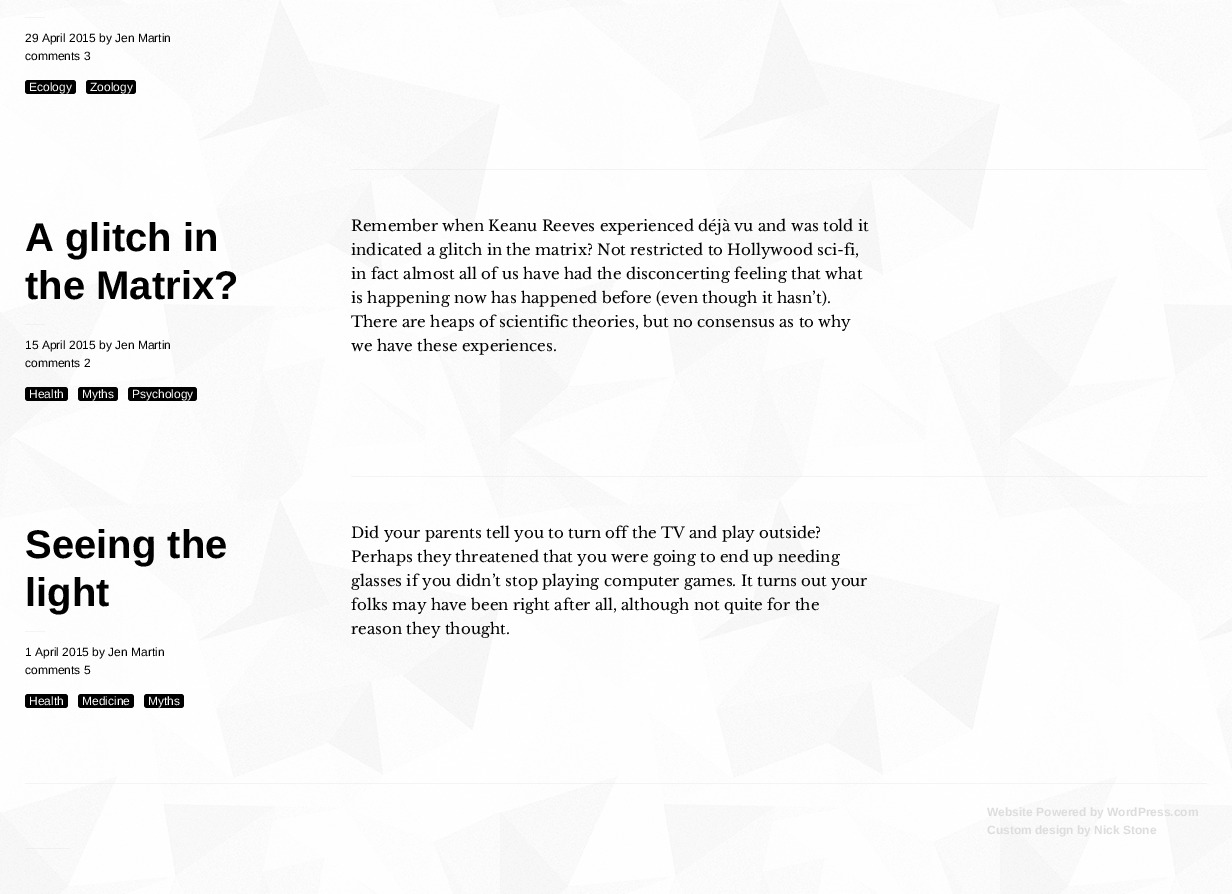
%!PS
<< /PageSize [1232 894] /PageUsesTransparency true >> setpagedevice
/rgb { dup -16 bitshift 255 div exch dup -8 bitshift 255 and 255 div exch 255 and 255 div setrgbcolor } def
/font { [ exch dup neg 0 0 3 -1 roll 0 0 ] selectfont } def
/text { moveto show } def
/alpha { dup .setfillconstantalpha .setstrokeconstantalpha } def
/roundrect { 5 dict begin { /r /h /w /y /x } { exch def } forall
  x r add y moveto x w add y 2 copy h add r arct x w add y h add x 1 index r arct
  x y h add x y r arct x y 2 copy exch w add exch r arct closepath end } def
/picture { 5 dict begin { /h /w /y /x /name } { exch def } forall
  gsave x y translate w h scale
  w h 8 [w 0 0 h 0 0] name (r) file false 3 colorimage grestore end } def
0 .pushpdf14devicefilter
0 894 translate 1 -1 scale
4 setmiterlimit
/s1 { /LiberationSans-Regular 12 font 16#000000 rgb } def
/s2 { /LiberationSans-Regular 12 font 16#FFFFFF rgb } def
/s3 { /LiberationSans-Bold 40 font 16#000000 rgb } def
/s4 { /LibreBaskerville-Regular 15 font 16#000000 rgb } def
/s5 { /LiberationSans-Bold 12 font 16#DDDDDD rgb } def
16#FFFFFF rgb
0 0 1232 894 rectfill
(pic1.raw) 0 0 1232 894 picture
16#F4F4F4 rgb
25 17 20 1 rectfill
s1
(29 April 2015 by Jen Martin) 25 42 text
(comments 3) 25 60 text
25 80 51 14 3 roundrect fill
s2
(Ecology) 29 91 text
16#000000 rgb
86 80 50 14 3 roundrect fill
s2
(Zoology) 90 91 text
s3
(A glitch in) 25 251 text
(the Matrix?) 25 299 text
0.3 alpha
16#DDDDDD rgb
25 324 20 1 rectfill
1 alpha
s1
(15 April 2015 by Jen Martin) 25 349 text
(comments 2) 25 367 text
25 387 43 14 3 roundrect fill
s2
(Health) 29 398 text
16#000000 rgb
78 387 40 14 3 roundrect fill
s2
(Myths) 82 398 text
16#000000 rgb
128 387 69 14 3 roundrect fill
s2
(Psychology) 132 398 text
0.3 alpha
16#DDDDDD rgb
351 169 856 1 rectfill
1 alpha
s4
(Remember when Keanu Reeves experienced déjà vu and was told it) 351 231 text
(indicated a glitch in the matrix? Not restricted to Hollywood sci-fi,) 351 255 text
(in fact almost all of us have had the disconcerting feeling that what) 351 279 text
(is happening now has happened before \(even though it hasn’t\).) 351 303 text
(There are heaps of scientific theories, but no consensus as to why) 351 327 text
(we have these experiences.) 351 351 text
s3
(Seeing the) 25 558 text
(light) 25 606 text
16#F4F4F4 rgb
25 631 20 1 rectfill
s1
(1 April 2015 by Jen Martin) 25 656 text
(comments 5) 25 674 text
25 694 43 14 3 roundrect fill
s2
(Health) 29 705 text
16#000000 rgb
78 694 56 14 3 roundrect fill
s2
(Medicine) 82 705 text
16#000000 rgb
144 694 40 14 3 roundrect fill
s2
(Myths) 148 705 text
0.3 alpha
16#DDDDDD rgb
351 476 856 1 rectfill
1 alpha
s4
(Did your parents tell you to turn off the TV and play outside?) 351 538 text
(Perhaps they threatened that you were going to end up needing) 351 562 text
(glasses if you didn’t stop playing computer games. It turns out your) 351 586 text
(folks may have been right after all, although not quite for the) 351 610 text
(reason they thought.) 351 634 text
0.3 alpha
16#DDDDDD rgb
25 783 1182 1 rectfill
1 alpha
s5
(Website Powered by WordPress.com) 987 816 text
(Custom design by Nick Stone) 987 834 text
0.3 alpha
25 848 45 1 rectfill
.poppdf14devicefilter showpage
